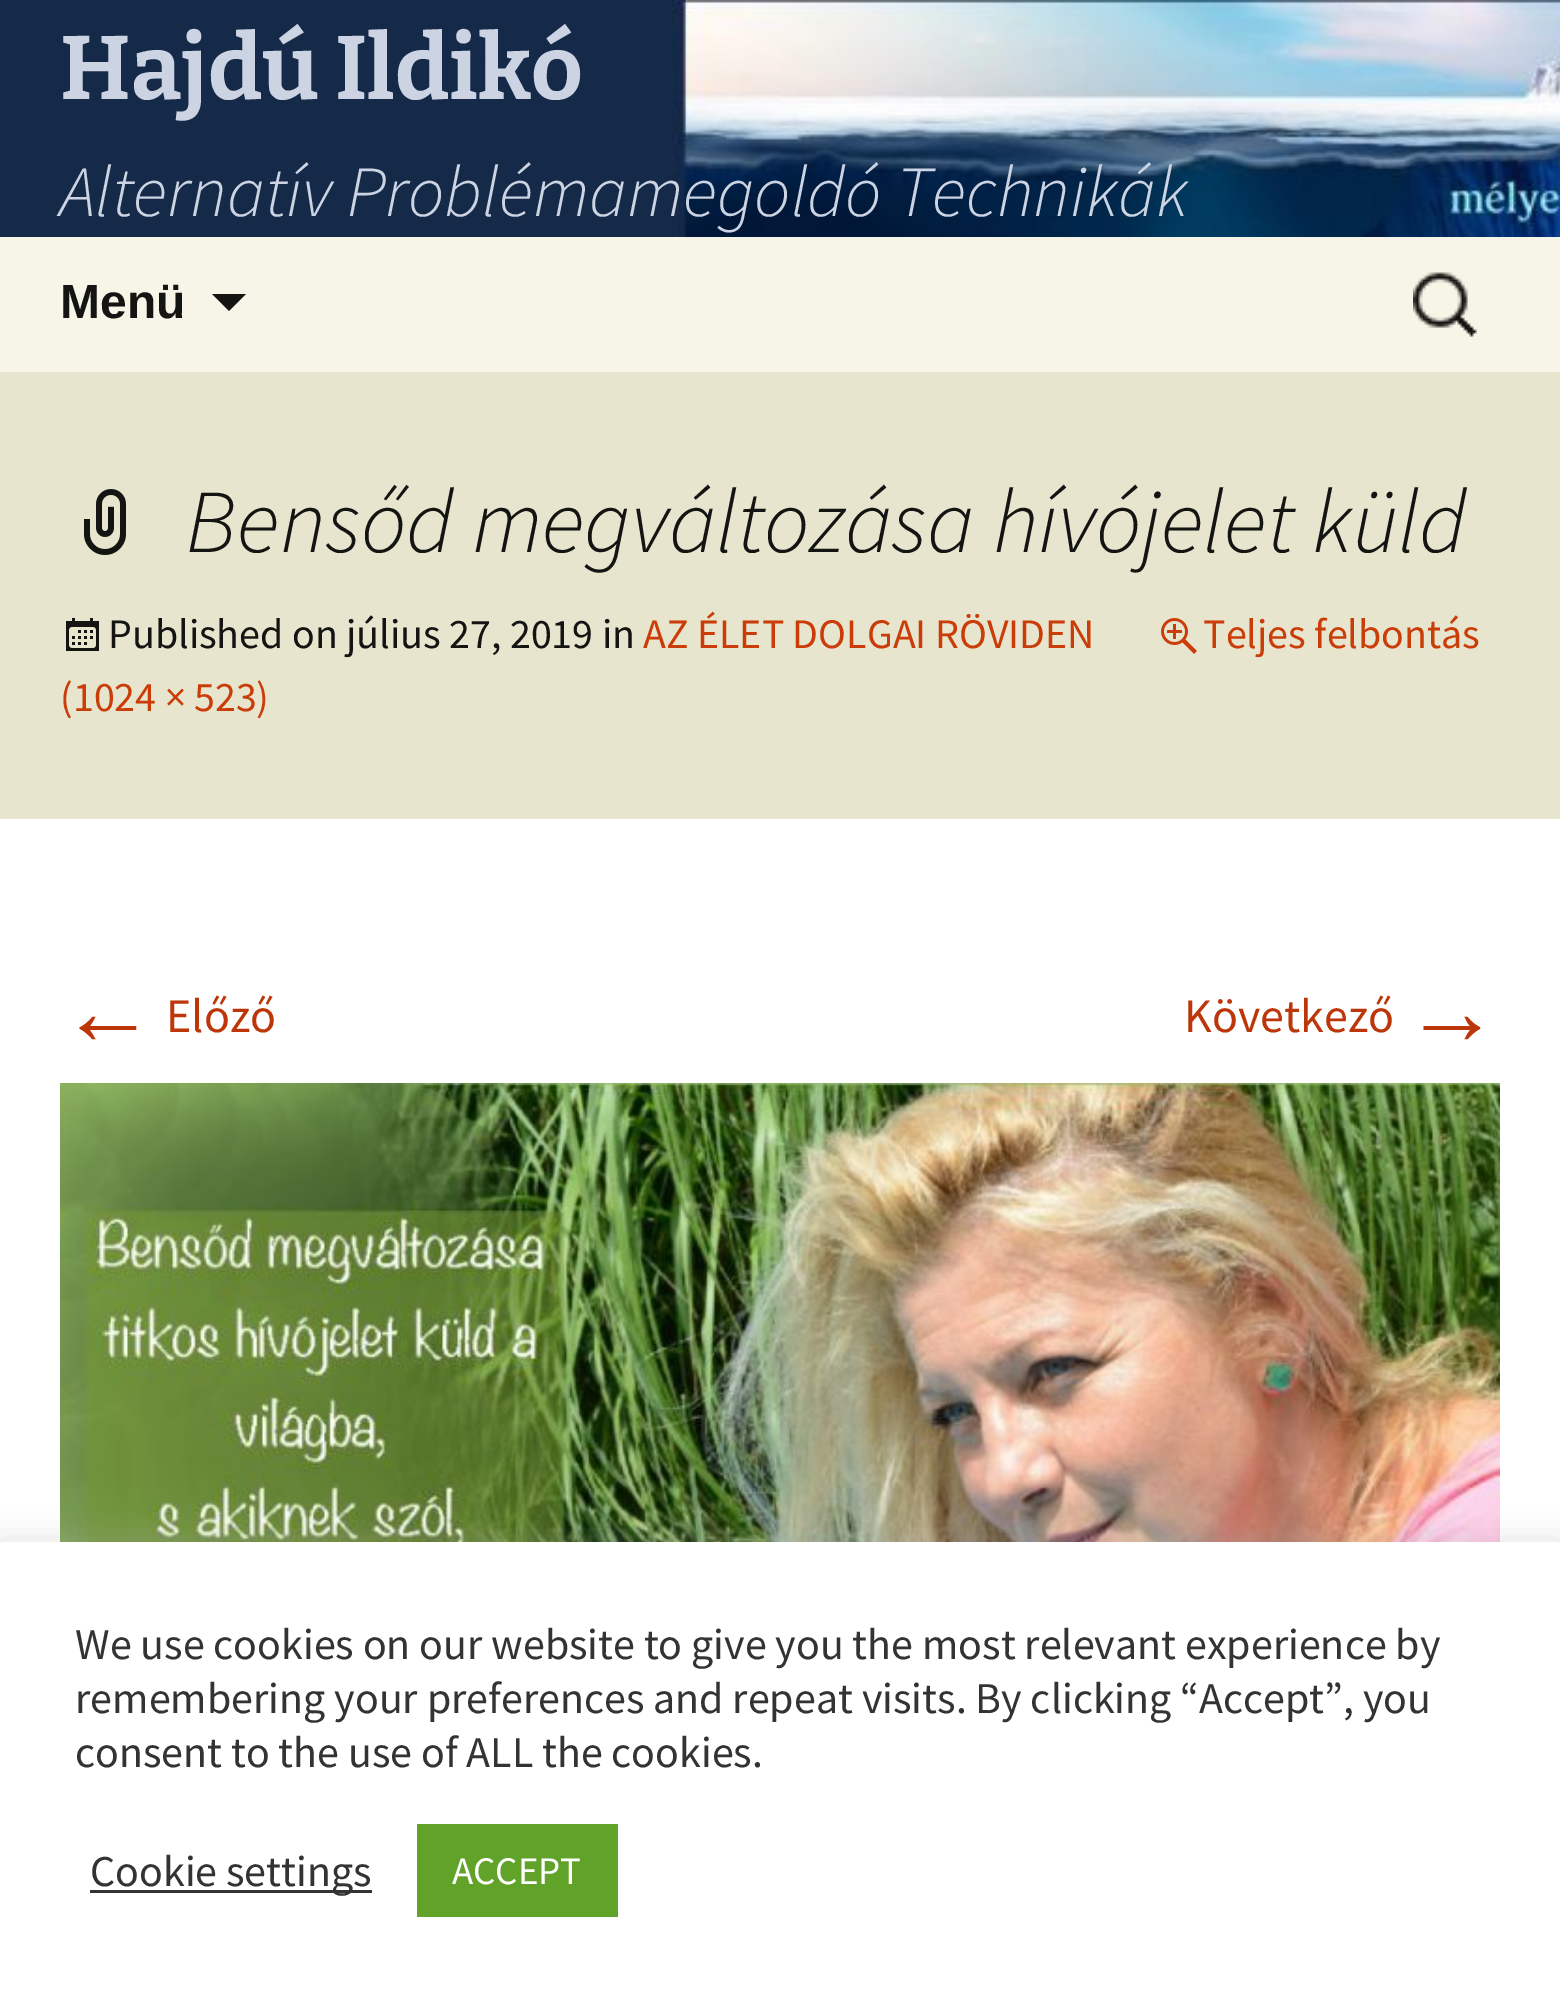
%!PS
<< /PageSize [1560 2006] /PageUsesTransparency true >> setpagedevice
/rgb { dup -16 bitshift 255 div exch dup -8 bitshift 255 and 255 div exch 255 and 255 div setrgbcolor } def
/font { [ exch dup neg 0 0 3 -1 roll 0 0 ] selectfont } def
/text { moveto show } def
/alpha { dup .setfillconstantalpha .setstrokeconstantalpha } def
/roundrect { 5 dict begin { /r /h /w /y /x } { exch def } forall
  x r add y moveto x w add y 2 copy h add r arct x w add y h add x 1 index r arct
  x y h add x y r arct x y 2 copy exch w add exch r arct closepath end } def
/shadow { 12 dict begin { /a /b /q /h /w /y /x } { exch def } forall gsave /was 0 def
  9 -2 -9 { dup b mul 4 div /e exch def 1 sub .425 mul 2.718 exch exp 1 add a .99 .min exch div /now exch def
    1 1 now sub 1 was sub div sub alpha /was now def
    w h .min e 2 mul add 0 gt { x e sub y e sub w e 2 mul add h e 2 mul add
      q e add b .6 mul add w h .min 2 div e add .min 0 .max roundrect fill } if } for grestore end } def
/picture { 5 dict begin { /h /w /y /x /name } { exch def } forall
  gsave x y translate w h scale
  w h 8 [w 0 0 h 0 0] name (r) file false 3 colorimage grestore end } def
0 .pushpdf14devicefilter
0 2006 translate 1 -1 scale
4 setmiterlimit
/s1 { /Bitter-Thin 90 font 16#CCD3E2 rgb } def
/s2 { /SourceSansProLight-LightItalic 72 font 16#CCD3E2 rgb } def
/s3 { /LiberationSans-Bold 48 font 16#141412 rgb } def
/s4 { /SourceSansProLight-LightItalic 90 font 16#141412 rgb } def
/s5 { /SourceSansPro-Regular 42 font 16#141412 rgb } def
/s6 { /SourceSansPro-Regular 42 font 16#CA3C08 rgb } def
/s7 { /LiberationSans-Regular 96 font 16#BC360A rgb } def
/s8 { /SourceSansPro-Regular 48 font 16#BC360A rgb } def
/s9 { /SourceSansPro-Regular 44 font 16#333333 rgb } def
/s10 { /SourceSansPro-Regular 39 font 16#FFFFFF rgb } def
16#FFFFFF rgb
0 0 1560 2006 rectfill
(pic1.raw) 0 0 1560 237 picture
s1
(Hajdú Ildikó) 60 99 text
s2
(Alternatív Problémamegoldó Technikák) 60 216 text
16#F7F5E7 rgb
0 237 1560 135 rectfill
s3
(Menü) 60 318 text
212 294 moveto 229 311 lineto 246 294 lineto closepath fill
(pic2.raw) 1413 272 64 65 picture
16#E8E5CE rgb
0 372 1560 447 rectfill
(pic3.raw) 84 489 42 66 picture
s4
(Bensőd megváltozása hívójelet küld) 186 552 text
(pic4.raw) 66 618 33 33 picture
s5
(Published on július 27, 2019 in) 108 648 text
s6
(AZ ÉLET DOLGAI RÖVIDEN) 643 648 text
(pic5.raw) 1161 618 36 36 picture
(Teljes felbontás) 1203 648 text
(\(1024 × 523\)) 60 711 text
s7
(←) 60 1044 text
s8
(Előző) 166 1032 text
(Következő) 1184 1032 text
s7
(→) 1404 1044 text
(pic6.raw) 60 1083 1440 459 picture
16#ACABAB rgb
0 1539 1560 465 0 15 0.3 shadow
16#FFFFFF rgb
0 1542 1560 464 rectfill
s9
(We use cookies on our website to give you the most relevant experience by) 75 1659 text
(remembering your preferences and repeat visits. By clicking “Accept”, you) 75 1713 text
(consent to the use of ALL the cookies.) 75 1767 text
90 1890 282 3 rectfill
(Cookie settings) 90 1886 text
16#61A229 rgb
417 1824 201 93 rectfill
s10
(ACCEPT) 452 1884 text
.poppdf14devicefilter showpage
